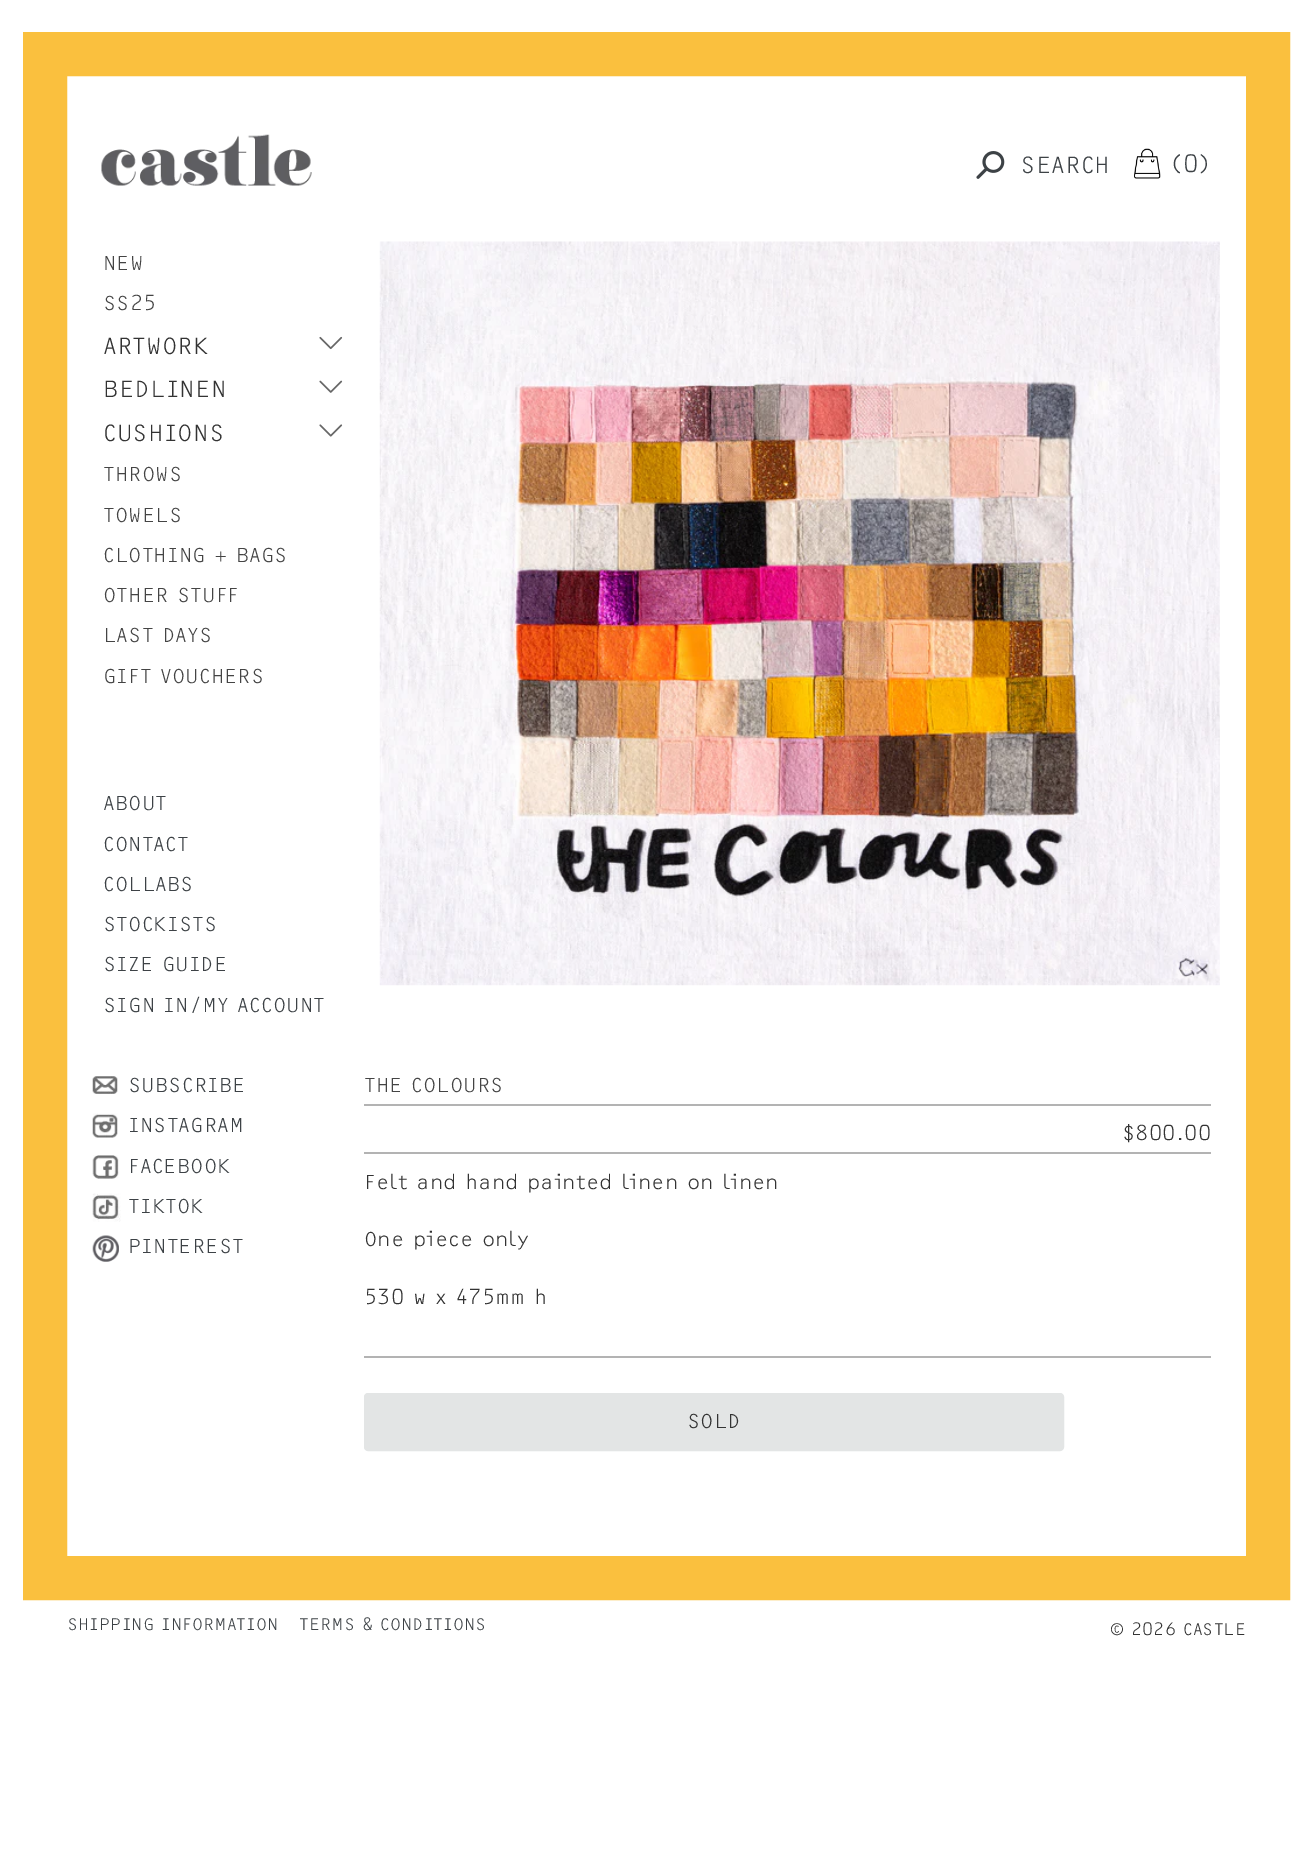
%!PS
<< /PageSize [1312 1861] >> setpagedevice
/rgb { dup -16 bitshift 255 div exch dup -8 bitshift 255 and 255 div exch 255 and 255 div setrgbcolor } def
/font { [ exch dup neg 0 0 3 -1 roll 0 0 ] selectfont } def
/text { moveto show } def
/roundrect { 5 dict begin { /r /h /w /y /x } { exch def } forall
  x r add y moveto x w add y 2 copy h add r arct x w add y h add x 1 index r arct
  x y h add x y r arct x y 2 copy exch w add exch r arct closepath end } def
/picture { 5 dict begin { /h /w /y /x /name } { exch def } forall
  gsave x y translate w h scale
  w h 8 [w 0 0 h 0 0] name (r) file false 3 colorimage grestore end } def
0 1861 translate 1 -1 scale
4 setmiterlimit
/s1 { /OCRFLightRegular-Regular 24.5 font 16#3D4246 rgb } def
/s2 { /OCRFLightRegular-Regular 21 font 16#444444 rgb } def
/s3 { /OCRFLightRegular-Regular 24.5 font 16#333333 rgb } def
/s4 { /OCRFLightRegular-Regular 21 font 16#3D4246 rgb } def
/s5 { /OCRFLightRegular-Regular 21 font 16#333333 rgb } def
/s6 { /OCRFLightRegular-Regular 17.5 font 16#3D4246 rgb } def
/s7 { /OCRFLightRegular-Regular 17.5 font 16#333333 rgb } def
16#FFFFFF rgb
0 0 1312 1861 rectfill
16#FAC03E rgb
44 setlinewidth
45 54 1223 1524 rectstroke
(pic1.raw) 101 134 211 52 picture
(pic2.raw) 976 151 29 28 picture
s1
(SEARCH) 1020 173 text
(pic3.raw) 1134 148 27 31 picture
(\(0\)) 1171 172 text
s2
(NEW) 103 270 text
(SS25) 103 310 text
s3
(ARTWORK) 103 354 text
(pic4.raw) 319 336 24 14 picture
(BEDLINEN) 103 397 text
(pic5.raw) 319 380 24 13 picture
(CUSHIONS) 103 441 text
(pic6.raw) 319 424 24 13 picture
s2
(THROWS) 103 481 text
(TOWELS) 103 522 text
(CLOTHING + BAGS) 103 562 text
(OTHER STUFF) 103 602 text
(LAST DAYS) 103 642 text
(GIFT VOUCHERS) 103 683 text
s4
(ABOUT) 103 810 text
(CONTACT) 103 851 text
(COLLABS) 103 891 text
(STOCKISTS) 103 931 text
(SIZE GUIDE) 103 971 text
(SIGN IN/MY ACCOUNT) 103 1012 text
(pic7.raw) 92 1076 26 18 picture
(SUBSCRIBE) 128 1092 text
(pic8.raw) 92 1113 26 25 picture
(INSTAGRAM) 128 1132 text
(pic9.raw) 92 1155 27 24 picture
(FACEBOOK) 128 1173 text
(pic10.raw) 92 1193 29 29 picture
(TIKTOK) 128 1213 text
(pic11.raw) 92 1235 27 27 picture
(PINTEREST) 128 1253 text
(pic12.raw) 379 241 841 745 picture
s2
(THE COLOURS) 364 1092 text
16#B3B3B3 rgb
364 1104 847 2 rectfill
364 1152 847 2 rectfill
s5
($800.00) 1122 1140 text
16#B3B3B3 rgb
364 1356 847 2 rectfill
s5
(Felt and hand painted linen on linen) 364 1189 text
(One piece only) 364 1246 text
(530 w x 475mm h) 364 1304 text
16#E3E5E5 rgb
365 1394 698 56 3 roundrect gsave fill grestore
2 setlinewidth
stroke
s5
(SOLD) 687 1428 text
s6
(SHIPPING INFORMATION) 67 1630 text
(TERMS & CONDITIONS) 299 1630 text
s7
(© 2026 CASTLE) 1110 1635 text
showpage
